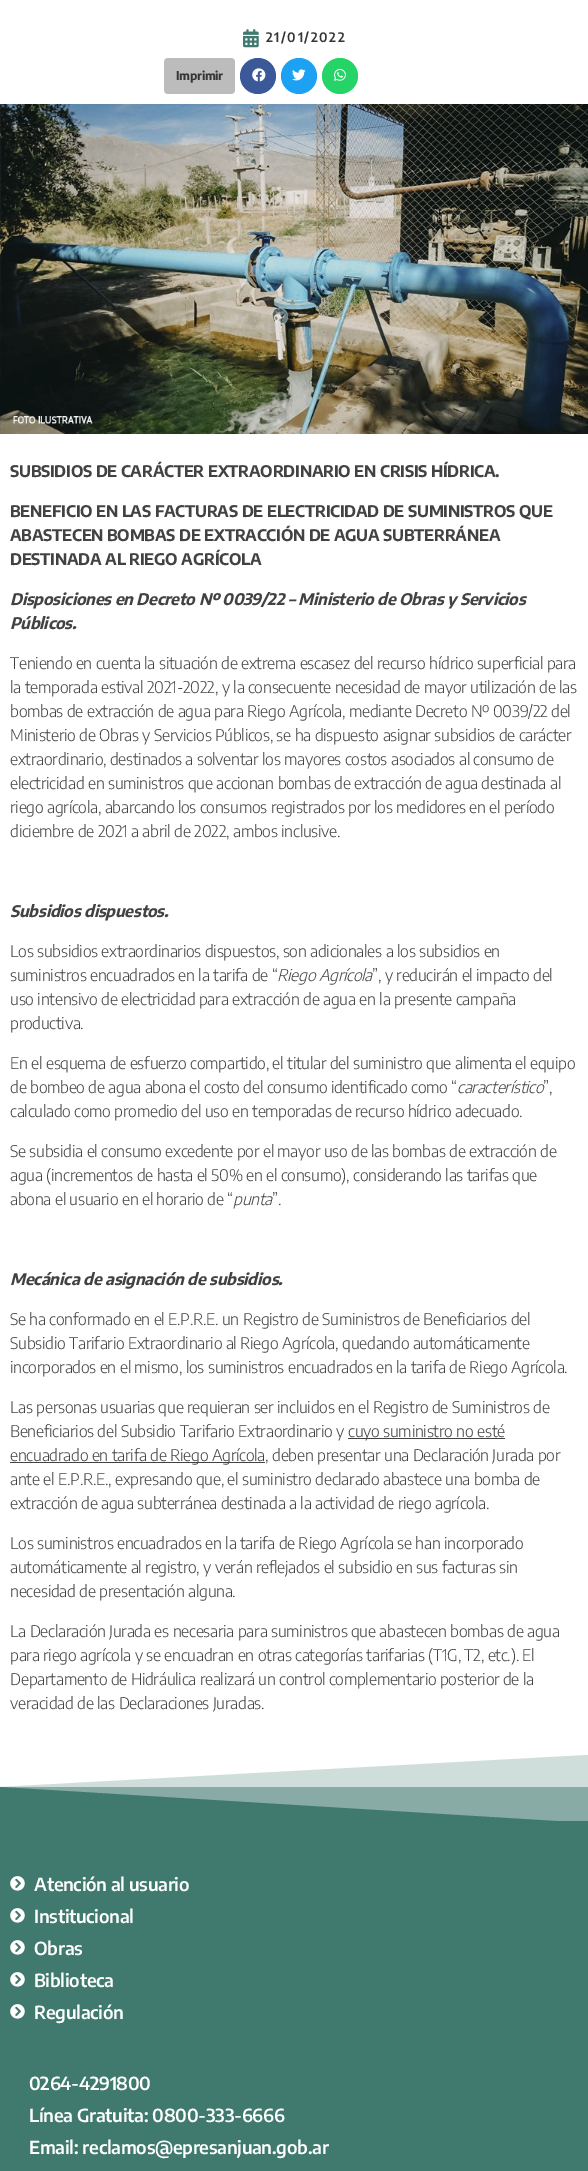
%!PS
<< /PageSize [588 2171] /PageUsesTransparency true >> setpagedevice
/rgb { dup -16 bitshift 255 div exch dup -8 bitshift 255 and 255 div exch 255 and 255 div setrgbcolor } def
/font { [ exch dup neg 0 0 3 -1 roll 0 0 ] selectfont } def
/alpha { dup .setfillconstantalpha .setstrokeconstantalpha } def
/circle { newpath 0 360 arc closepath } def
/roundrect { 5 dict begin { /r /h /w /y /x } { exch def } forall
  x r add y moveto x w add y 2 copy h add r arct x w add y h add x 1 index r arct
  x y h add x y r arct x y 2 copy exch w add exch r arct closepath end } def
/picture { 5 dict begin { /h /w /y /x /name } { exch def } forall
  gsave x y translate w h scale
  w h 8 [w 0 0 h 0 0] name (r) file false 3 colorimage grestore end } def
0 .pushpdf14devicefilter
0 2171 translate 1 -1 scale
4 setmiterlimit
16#FFFFFF rgb
0 0 588 2171 rectfill
16#A0BDB7 rgb
1 1787 587 34 rectfill
(pic1.raw) 243 29 16 19 picture
/EncodeSansCondensed-SemiBold 13 font
16#363636 rgb
266 42 moveto 1.6 0 (21/01/2022) ashow
16#BCBCBC rgb
164 58 71 36 4 roundrect fill
/EncodeSansCondensed-Bold 12 font
16#363636 rgb
176 80 moveto -0.27 0 (Imprimir) ashow
16#3B5998 rgb
258 76 18 circle fill
(pic2.raw) 252 68 14 14 picture
16#1DA1F2 rgb
299 76 18 circle fill
(pic3.raw) 292 69 14 12 picture
16#25D366 rgb
340 76 18 circle fill
(pic4.raw) 334 69 12 12 picture
(pic5.raw) 0 104 588 330 picture
/EncodeSansCondensed-Bold 16 font
16#424242 rgb
10 477 moveto -0.27 0 (SUBSIDIOS DE CARÁCTER EXTRAORDINARIO EN CRISIS HÍDRICA.) ashow
10 517 moveto -0.27 0 (BENEFICIO EN LAS FACTURAS DE ELECTRICIDAD DE SUMINISTROS QUE) ashow
10 541 moveto -0.27 0 (ABASTECEN BOMBAS DE EXTRACCIÓN DE AGUA SUBTERRÁNEA) ashow
10 565 moveto -0.27 0 (DESTINADA AL RIEGO AGRÍCOLA) ashow
/EncodeSansCondensed-BoldItalic 16 font
10 605 moveto -0.27 0 (Disposiciones en Decreto Nº 0039/22 – Ministerio de Obras y Servicios) ashow
10 629 moveto -0.27 0 (Públicos.) ashow
/EncodeSansCondensed-Light 16 font
10 669 moveto -0.27 0 (Teniendo en cuenta la situación de extrema escasez del recurso hídrico superficial para) ashow
10 693 moveto -0.27 0 (la temporada estival 2021-2022, y la consecuente necesidad de mayor utilización de las) ashow
10 717 moveto -0.27 0 (bombas de extracción de agua para Riego Agrícola, mediante Decreto Nº 0039/22 del) ashow
10 741 moveto -0.27 0 (Ministerio de Obras y Servicios Públicos, se ha dispuesto asignar subsidios de carácter) ashow
10 765 moveto -0.27 0 (extraordinario, destinados a solventar los mayores costos asociados al consumo de) ashow
10 789 moveto -0.27 0 (electricidad en suministros que accionan bombas de extracción de agua destinada al) ashow
10 813 moveto -0.27 0 (riego agrícola, abarcando los consumos registrados por los medidores en el período) ashow
10 837 moveto -0.27 0 (diciembre de 2021 a abril de 2022, ambos inclusive.) ashow
/EncodeSansCondensed-BoldItalic 16 font
10 917 moveto -0.27 0 (Subsidios dispuestos.) ashow
/EncodeSansCondensed-Light 16 font
10 957 moveto -0.27 0 (Los subsidios extraordinarios dispuestos, son adicionales a los subsidios en) ashow
10 981 moveto -0.27 0 (suministros encuadrados en la tarifa de “) ashow
/EncodeSansCondensed-LightItalic 16 font
277 981 moveto -0.27 0 (Riego Agrícola) ashow
/EncodeSansCondensed-Light 16 font
372 981 moveto -0.27 0 (”, y reducirán el impacto del) ashow
10 1005 moveto -0.27 0 (uso intensivo de electricidad para extracción de agua en la presente campaña) ashow
10 1029 moveto -0.27 0 (productiva.) ashow
10 1069 moveto -0.27 0 (En el esquema de esfuerzo compartido, el titular del suministro que alimenta el equipo) ashow
10 1093 moveto -0.27 0 (de bombeo de agua abona el costo del consumo identificado como “) ashow
/EncodeSansCondensed-LightItalic 16 font
457 1093 moveto -0.27 0 (característico) ashow
/EncodeSansCondensed-Light 16 font
543 1093 moveto -0.27 0 (”,) ashow
10 1117 moveto -0.27 0 (calculado como promedio del uso en temporadas de recurso hídrico adecuado.) ashow
10 1157 moveto -0.27 0 (Se subsidia el consumo excedente por el mayor uso de las bombas de extracción de) ashow
10 1181 moveto -0.27 0 (agua \(incrementos de hasta el 50% en el consumo\), considerando las tarifas que) ashow
10 1205 moveto -0.27 0 (abona el usuario en el horario de “) ashow
/EncodeSansCondensed-LightItalic 16 font
233 1205 moveto -0.27 0 (punta) ashow
/EncodeSansCondensed-Light 16 font
272 1205 moveto -0.27 0 (”.) ashow
/EncodeSansCondensed-BoldItalic 16 font
10 1285 moveto -0.27 0 (Mecánica de asignación de subsidios.) ashow
/EncodeSansCondensed-Light 16 font
10 1325 moveto -0.27 0 (Se ha conformado en el E.P.R.E. un Registro de Suministros de Beneficiarios del) ashow
10 1349 moveto -0.27 0 (Subsidio Tarifario Extraordinario al Riego Agrícola, quedando automáticamente) ashow
10 1373 moveto -0.27 0 (incorporados en el mismo, los suministros encuadrados en la tarifa de Riego Agrícola.) ashow
10 1413 moveto -0.27 0 (Las personas usuarias que requieran ser incluidos en el Registro de Suministros de) ashow
10 1437 moveto -0.27 0 (Beneficiarios del Subsidio Tarifario Extraordinario y) ashow
348 1438 157 1 rectfill
348 1437 moveto -0.27 0 (cuyo suministro no esté) ashow
10 1462 255 1 rectfill
10 1461 moveto -0.27 0 (encuadrado en tarifa de Riego Agrícola, deben presentar una Declaración Jurada por) ashow
10 1485 moveto -0.27 0 (ante el E.P.R.E., expresando que, el suministro declarado abastece una bomba de) ashow
10 1509 moveto -0.27 0 (extracción de agua subterránea destinada a la actividad de riego agrícola.) ashow
10 1549 moveto -0.27 0 (Los suministros encuadrados en la tarifa de Riego Agrícola se han incorporado) ashow
10 1573 moveto -0.27 0 (automáticamente al registro, y verán reflejados el subsidio en sus facturas sin) ashow
10 1597 moveto -0.27 0 (necesidad de presentación alguna.) ashow
10 1637 moveto -0.27 0 (La Declaración Jurada es necesaria para suministros que abastecen bombas de agua) ashow
10 1661 moveto -0.27 0 (para riego agrícola y se encuadran en otras categorías tarifarias \(T1G, T2, etc.\). El) ashow
10 1685 moveto -0.27 0 (Departamento de Hidráulica realizará un control complementario posterior de la) ashow
10 1709 moveto -0.27 0 (veracidad de las Declaraciones Juradas.) ashow
16#407A6E rgb
588 1823 moveto 0 1823 lineto 0 1787 lineto closepath fill
0.25 alpha
0 1823 moveto 588 1823 lineto 588 1755 lineto 0 1787 lineto closepath fill
1 alpha
0 1821 588 350 rectfill
(pic6.raw) 10 1876 15 15 picture
/EncodeSansCondensed-SemiBold 18 font
16#FFFFFF rgb
34 1891 moveto -0.27 0 (Atención al usuario) ashow
(pic6.raw) 10 1908 15 15 picture
34 1923 moveto -0.27 0 (Institucional) ashow
(pic6.raw) 10 1940 15 15 picture
34 1955 moveto -0.27 0 (Obras) ashow
(pic6.raw) 10 1972 15 15 picture
34 1987 moveto -0.27 0 (Biblioteca) ashow
(pic6.raw) 10 2004 15 15 picture
34 2019 moveto -0.27 0 (Regulación) ashow
29 2090 moveto -0.27 0 (0264-4291800) ashow
29 2122 moveto -0.27 0 (Línea Gratuita: 0800-333-6666) ashow
29 2154 moveto -0.27 0 (Email: reclamos@epresanjuan.gob.ar) ashow
.poppdf14devicefilter showpage
